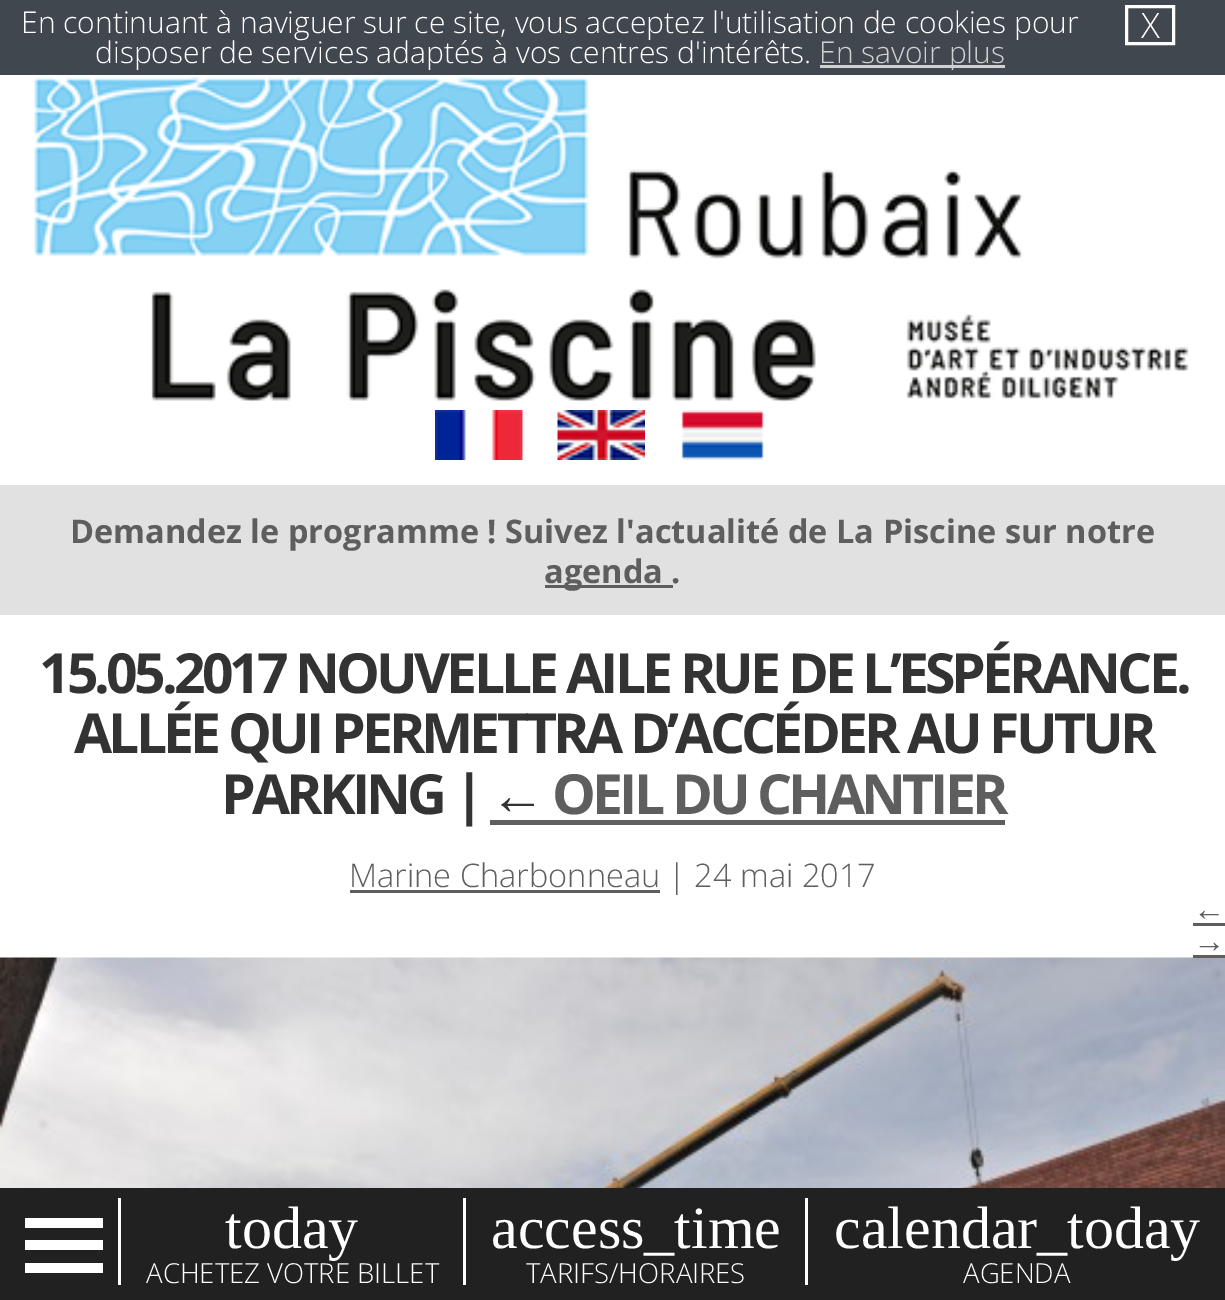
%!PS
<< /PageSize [1225 1300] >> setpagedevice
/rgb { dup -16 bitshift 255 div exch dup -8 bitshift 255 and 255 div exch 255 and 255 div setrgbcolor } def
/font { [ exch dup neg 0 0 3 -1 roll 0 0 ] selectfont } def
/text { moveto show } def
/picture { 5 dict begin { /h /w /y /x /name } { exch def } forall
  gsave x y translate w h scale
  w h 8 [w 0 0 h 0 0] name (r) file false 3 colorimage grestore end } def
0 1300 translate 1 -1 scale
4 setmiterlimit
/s1 { /OpenSans-Light 30 font 16#FFFFFF rgb } def
/s2 { /OpenSans-Light 35 font 16#FFFFFF rgb } def
/s3 { /OpenSans-Light 30 font 16#D1D1D1 rgb } def
/s4 { /OpenSans-Bold 32.5 font 16#5E5E5E rgb } def
/s5 { /LiberationSerif-Regular 60 font 16#FFFFFF rgb } def
/s6 { /OpenSans-Light 27.5 font 16#FFFFFF rgb } def
/s7 { /OpenSans-Light 32.5 font 16#5E5E5E rgb } def
/s8 { /LiberationSans-Regular 32.5 font 16#5E5E5E rgb } def
16#FFFFFF rgb
0 0 1225 1300 rectfill
16#41474F rgb
0 0 1225 75 rectfill
s1
(En continuant à naviguer sur ce site, vous acceptez l'utilisation de cookies pour) 21 33 text
3 setlinewidth
1126.5 6.5 47 37 rectstroke
s2
(X) 1141 38 text
s1
(disposer de services adaptés à vos centres d'intérêts.) 95 63 text
16#D1D1D1 rgb
820 65 185 3 rectfill
(En savoir plus) 819 63 text
(pic1.raw) 34 77 1155 325 picture
(pic2.raw) 435 410 88 50 picture
(pic3.raw) 557 410 88 50 picture
(pic4.raw) 681 410 83 50 picture
16#E1E1E1 rgb
0 485 1225 130 rectfill
s4
(Demandez le programme ! Suivez l'actualité de La Piscine sur notre) 70 543 text
545 585 128 3 rectfill
(agenda .) 544 583 text
16#212121 rgb
0 1188 1225 112 rectfill
16#FFFFFF rgb
25 1218 78 10 rectfill
25 1240 78 10 rectfill
25 1263 78 10 rectfill
118 1198 3 87 rectfill
s5
(today) 225 1248 text
s6
(ACHETEZ VOTRE BILLET) 146 1283 text
463 1198 3 87 rectfill
s5
(access_time) 491 1248 text
s6
(TARIFS/HORAIRES) 526 1283 text
805 1198 3 87 rectfill
s5
(calendar_today) 834 1248 text
s6
(AGENDA) 963 1283 text
/OpenSans-Bold 55.25 font
16#333333 rgb
39 693 moveto -3.85 0 (15.05.2017 NOUVELLE AILE RUE DE L’ESPÉRANCE.) ashow
74 753 moveto -3.85 0 (ALLÉE QUI PERMETTRA D’ACCÉDER AU FUTUR) ashow
221 814 moveto -3.85 0 (PARKING |) ashow
/LiberationSans-Bold 55.25 font
490 814 moveto -3.85 0 (←) ashow
16#5E5E5E rgb
490 820 515 5 rectfill
/OpenSans-Bold 55.25 font
552 814 moveto -3.85 0 (OEIL DU CHANTIER) ashow
350 890 310 3 rectfill
s7
(Marine Charbonneau | 24 mai 2017) 349 887 text
s8
(←) 1193 920 text
1193 923 32 3 rectfill
(→) 1193 952 text
(pic5.raw) 0 957 1225 231 picture
1193 955 32 3 rectfill
showpage
